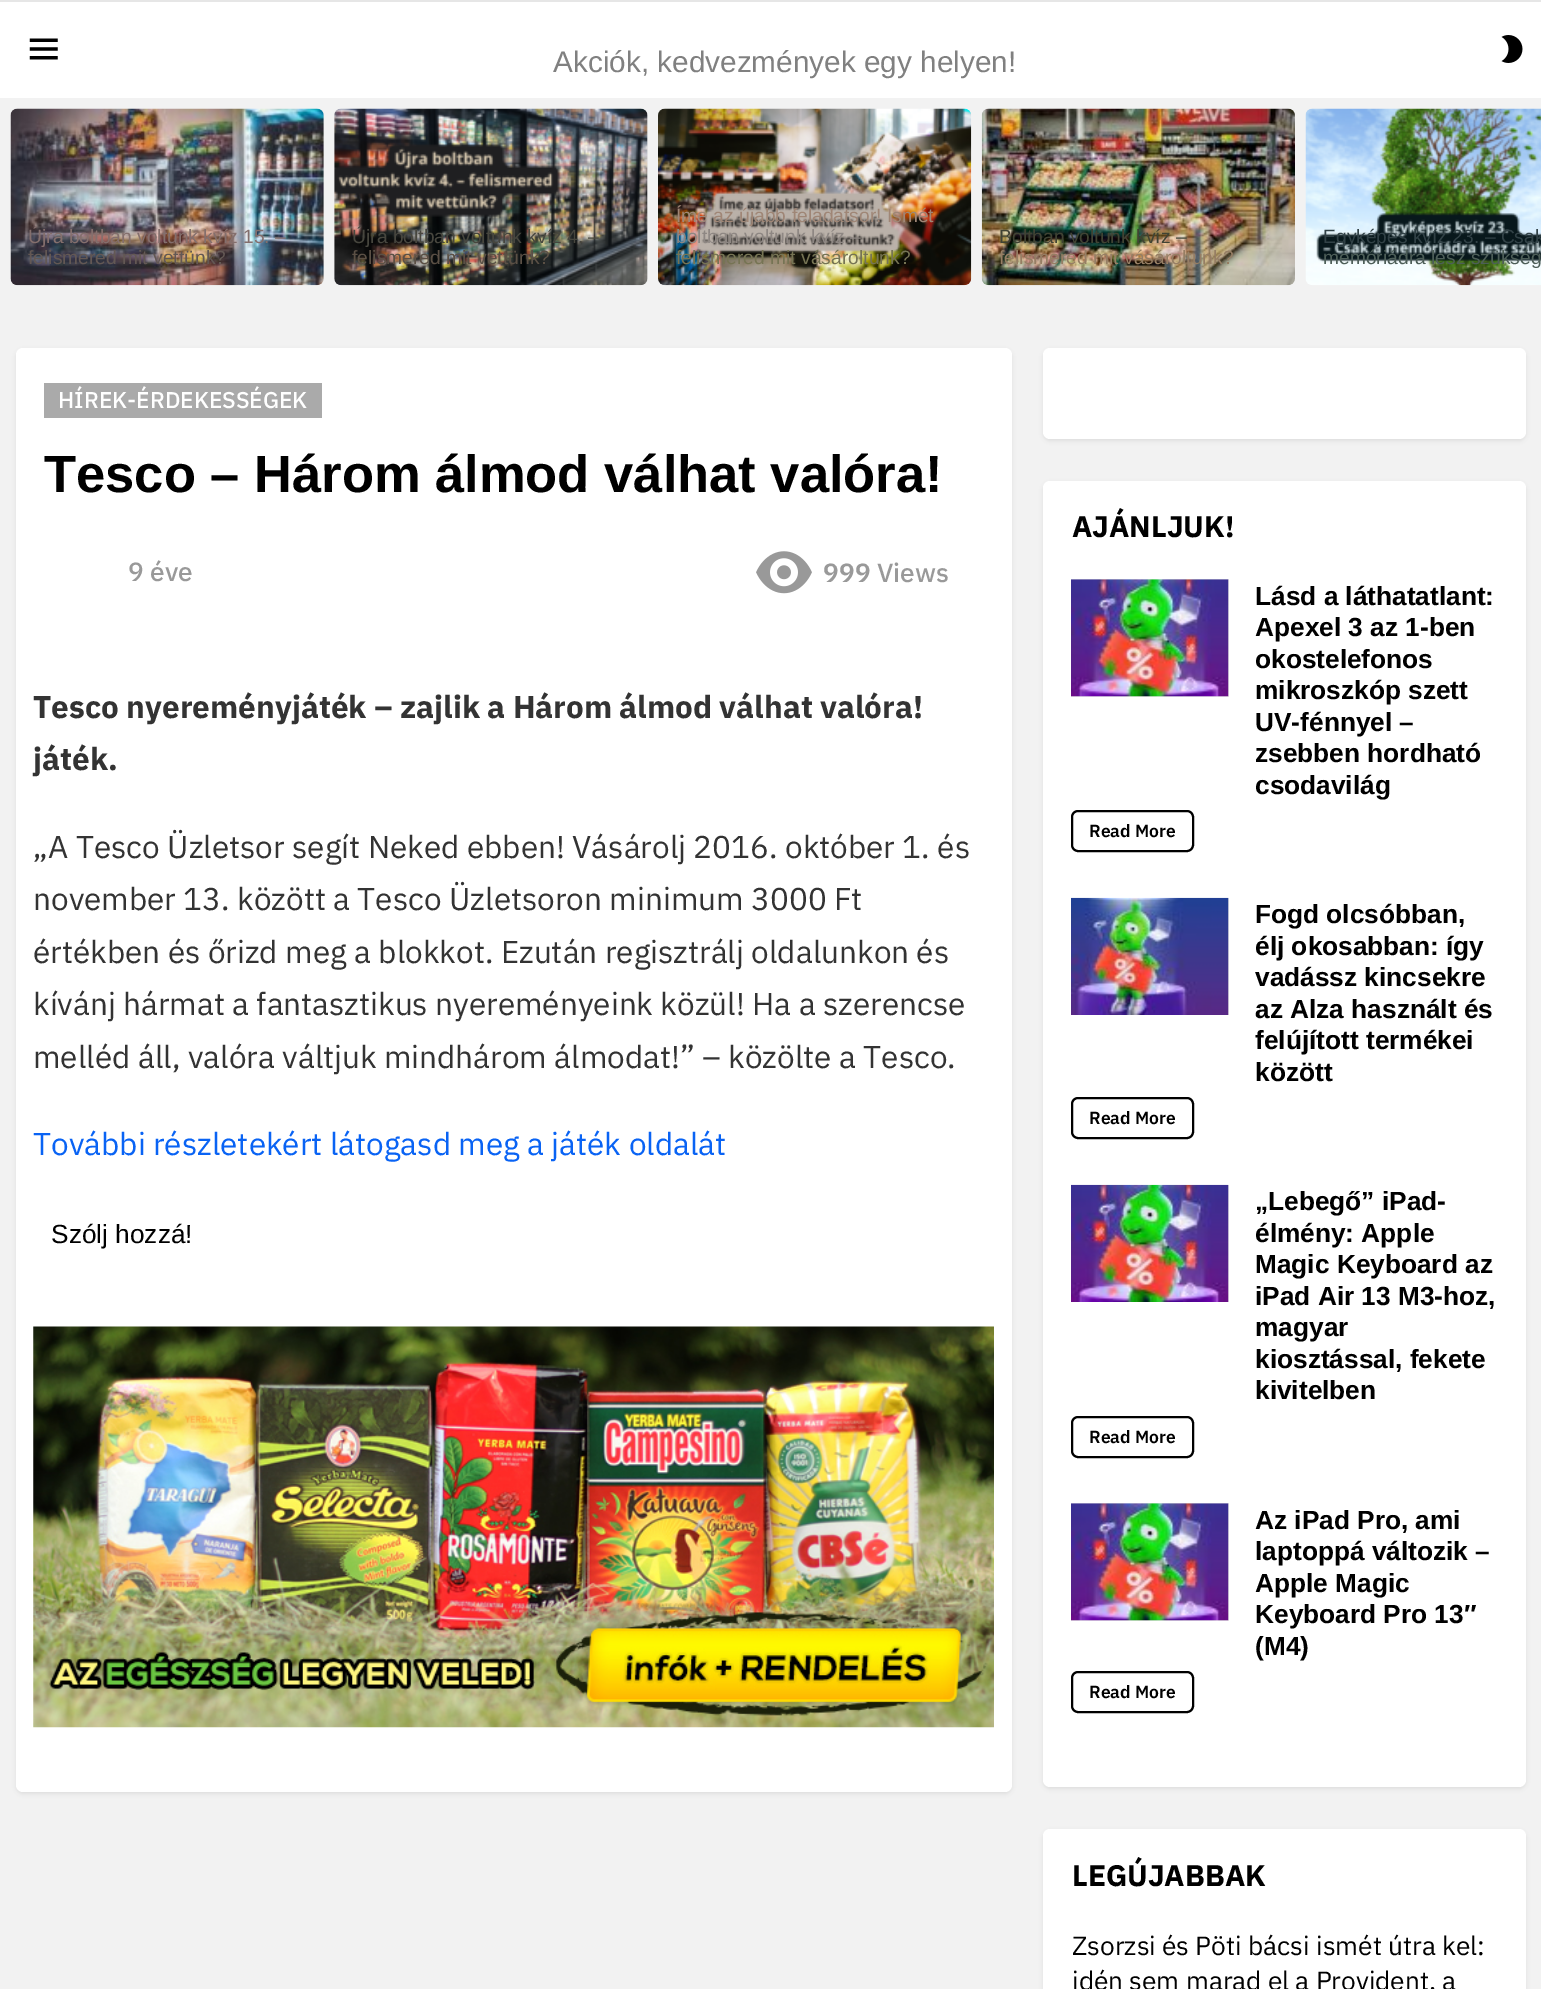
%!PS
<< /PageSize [1541 1989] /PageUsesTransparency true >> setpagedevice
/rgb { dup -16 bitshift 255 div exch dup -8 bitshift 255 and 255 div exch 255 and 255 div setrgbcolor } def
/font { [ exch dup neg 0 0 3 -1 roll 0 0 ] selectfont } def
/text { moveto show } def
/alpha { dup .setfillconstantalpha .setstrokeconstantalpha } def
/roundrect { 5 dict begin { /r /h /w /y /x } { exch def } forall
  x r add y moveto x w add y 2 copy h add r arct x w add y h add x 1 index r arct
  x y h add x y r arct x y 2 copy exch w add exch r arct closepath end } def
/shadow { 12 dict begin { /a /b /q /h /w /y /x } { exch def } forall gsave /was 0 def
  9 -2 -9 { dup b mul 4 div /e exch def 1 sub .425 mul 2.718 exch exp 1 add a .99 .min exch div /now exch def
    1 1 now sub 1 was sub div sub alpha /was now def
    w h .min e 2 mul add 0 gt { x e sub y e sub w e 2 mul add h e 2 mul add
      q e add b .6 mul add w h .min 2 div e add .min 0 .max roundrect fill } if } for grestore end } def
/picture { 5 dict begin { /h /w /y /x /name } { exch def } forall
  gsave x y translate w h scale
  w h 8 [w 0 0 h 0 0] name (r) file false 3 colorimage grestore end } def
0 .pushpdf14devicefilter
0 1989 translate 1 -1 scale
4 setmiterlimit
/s1 { /LiberationSans-Regular 29.75 font 16#808080 rgb } def
/s2 { /LiberationSans-Regular 19.25 font 16#846F6D rgb } def
/s3 { /LiberationSans-Regular 19.25 font 16#635854 rgb } def
/s4 { /LiberationSans-Regular 19.25 font 16#47463E rgb } def
/s5 { /LiberationSans-Regular 19.25 font 16#5B5045 rgb } def
/s6 { /LiberationSans-Regular 19.25 font 16#9F8676 rgb } def
/s7 { /LiberationSans-Regular 19.25 font 16#8E8783 rgb } def
/s8 { /LiberationSans-Regular 19.25 font 16#767454 rgb } def
/s9 { /LiberationSans-Regular 19.25 font 16#404333 rgb } def
/s10 { /LiberationSans-Regular 19.25 font 16#967E64 rgb } def
/s11 { /LiberationSans-Regular 19.25 font 16#314146 rgb } def
/s12 { /LiberationSans-Regular 19.25 font 16#4D5E58 rgb } def
/s13 { /IBMPlexSans-Medium 22.75 font 16#FFFFFF rgb } def
/s14 { /LiberationSans-Bold 52.5 font 16#000000 rgb } def
/s15 { /IBMPlexSans-Medium 26.25 font 16#999999 rgb } def
/s16 { /IBMPlexSans-SemiBold 26.25 font 16#999999 rgb } def
/s17 { /IBMPlexSans-Bold 31.5 font 16#333333 rgb } def
/s18 { /IBMPlexSans-Regular 31.5 font 16#333333 rgb } def
/s19 { /IBMPlexSans-Regular 31.5 font 16#0963F4 rgb } def
/s20 { /LiberationSans-Regular 26.25 font 16#000000 rgb } def
/s21 { /IBMPlexSans-Bold 29.75 font 16#000000 rgb } def
/s22 { /LiberationSans-Bold 26.25 font 16#000000 rgb } def
/s23 { /IBMPlexSans-SemiBold 17.5 font 16#000000 rgb } def
/s24 { /IBMPlexSans-Regular 26.25 font 16#000000 rgb } def
16#FFFFFF rgb
0 0 1541 1989 rectfill
16#E6E6E6 rgb
0 0 1541 2 rectfill
(pic1.raw) 29 38 29 22 picture
s1
(Akciók, kedvezmények egy helyen!) 553 72 text
(pic2.raw) 1501 35 22 28 picture
16#F2F2F2 rgb
0 98 1541 1891 rectfill
16#E6E6E6 rgb
11 109 313 176 7 roundrect fill
(pic3.raw) 10 108 314 178 picture
s2
(Újra boltban voltunk kvíz 15. –) 28 243 text
s3
(felismered mit vettünk?) 28 264 text
16#E6E6E6 rgb
334 109 314 176 7 roundrect fill
(pic4.raw) 334 108 314 178 picture
s4
(Újra boltban voltunk kvíz 4. –) 352 243 text
s5
(felismered mit vettünk?) 352 264 text
(pic5.raw) 658 108 314 178 picture
s6
(Íme az újabb feladatsor! Ismét) 676 222 text
s7
(boltban voltunk kvíz –) 676 243 text
s8
(felismered mit vásároltunk?) 676 264 text
(pic6.raw) 981 108 314 178 picture
s9
(Boltban voltunk kvíz –) 999 243 text
s10
(felismered mit vásároltunk?) 999 264 text
(pic7.raw) 1305 108 236 178 picture
s11
(Egyképes kvíz 23. – Csak) 1323 243 text
s12
(memóriádra lesz szükség) 1323 264 text
16#000000 rgb
16 350 996 1444 7 2 0.07 shadow
16#FFFFFF rgb
16 348 996 1444 7 roundrect fill
16#AAAAAA rgb
44 383 278 35 rectfill
s13
(HÍREK-ÉRDEKESSÉGEK) 58 408 text
s14
(Tesco – Három álmod válhat valóra!) 44 492 text
s15
(9 éve) 128 581 text
(pic8.raw) 756 551 56 43 picture
s16
(999) 823 582 text
s15
(Views) 877 582 text
s17
(Tesco nyereményjáték – zajlik a Három álmod válhat valóra!) 33 718 text
(játék.) 33 770 text
s18
(„A Tesco Üzletsor segít Neked ebben! Vásárolj 2016. október 1. és) 33 858 text
(november 13. között a Tesco Üzletsoron minimum 3000 Ft) 33 910 text
(értékben és őrizd meg a blokkot. Ezután regisztrálj oldalunkon és) 33 963 text
(kívánj hármat a fantasztikus nyereményeink közül! Ha a szerencse) 33 1015 text
(melléd áll, valóra váltjuk mindhárom álmodat!” – közölte a Tesco.) 33 1068 text
s19
(További részletekért látogasd meg a játék oldalát) 33 1155 text
s20
(Szólj hozzá!) 51 1243 text
(pic9.raw) 33 1326 961 402 picture
1043 350 483 91 7 2 0.07 shadow
16#FFFFFF rgb
1043 348 483 91 7 roundrect fill
16#000000 rgb
1043 483 483 1306 7 2 0.07 shadow
16#FFFFFF rgb
1043 481 483 1306 7 roundrect fill
s21
(AJÁNLJUK!) 1072 537 text
16#E6E6E6 rgb
1071 579 158 118 rectfill
(pic10.raw) 1071 579 158 118 picture
s22
(Lásd a láthatatlant:) 1255 605 text
(Apexel 3 az 1-ben) 1255 636 text
(okostelefonos) 1255 668 text
(mikroszkóp szett) 1255 699 text
(UV-fénnyel –) 1255 731 text
(zsebben hordható) 1255 762 text
(csodavilág) 1255 794 text
2 setlinewidth
1072 811 121 40 6 roundrect stroke
s23
(Read More) 1089 837 text
16#E6E6E6 rgb
1228 898 1 117 rectfill
(pic11.raw) 1071 897 158 118 picture
s22
(Fogd olcsóbban,) 1255 923 text
(élj okosabban: így) 1255 955 text
(vadássz kincsekre) 1255 986 text
(az Alza használt és) 1255 1018 text
(felújított termékei) 1255 1049 text
(között) 1255 1081 text
1072 1098 121 40 6 roundrect stroke
s23
(Read More) 1089 1124 text
16#E6E6E6 rgb
1228 1185 1 117 rectfill
(pic12.raw) 1071 1184 158 118 picture
s22
(„Lebegő” iPad-) 1255 1210 text
(élmény: Apple) 1255 1242 text
(Magic Keyboard az) 1255 1273 text
(iPad Air 13 M3-hoz,) 1255 1305 text
(magyar) 1255 1336 text
(kiosztással, fekete) 1255 1368 text
(kivitelben) 1255 1399 text
1072 1417 121 40 6 roundrect stroke
s23
(Read More) 1089 1443 text
16#E6E6E6 rgb
1071 1503 158 118 rectfill
(pic10.raw) 1071 1503 158 118 picture
s22
(Az iPad Pro, ami) 1255 1529 text
(laptoppá változik –) 1255 1560 text
(Apple Magic) 1255 1592 text
(Keyboard Pro 13″) 1255 1623 text
(\(M4\)) 1255 1655 text
1072 1672 121 40 6 roundrect stroke
s23
(Read More) 1089 1698 text
1043 1831 483 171 7 2 0.07 shadow
16#FFFFFF rgb
1043 1829 483 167 7 roundrect fill
s21
(LEGÚJABBAK) 1072 1886 text
s24
(Zsorzsi és Pöti bácsi ismét útra kel:) 1072 1955 text
(idén sem marad el a Provident, a) 1072 1990 text
.poppdf14devicefilter showpage
